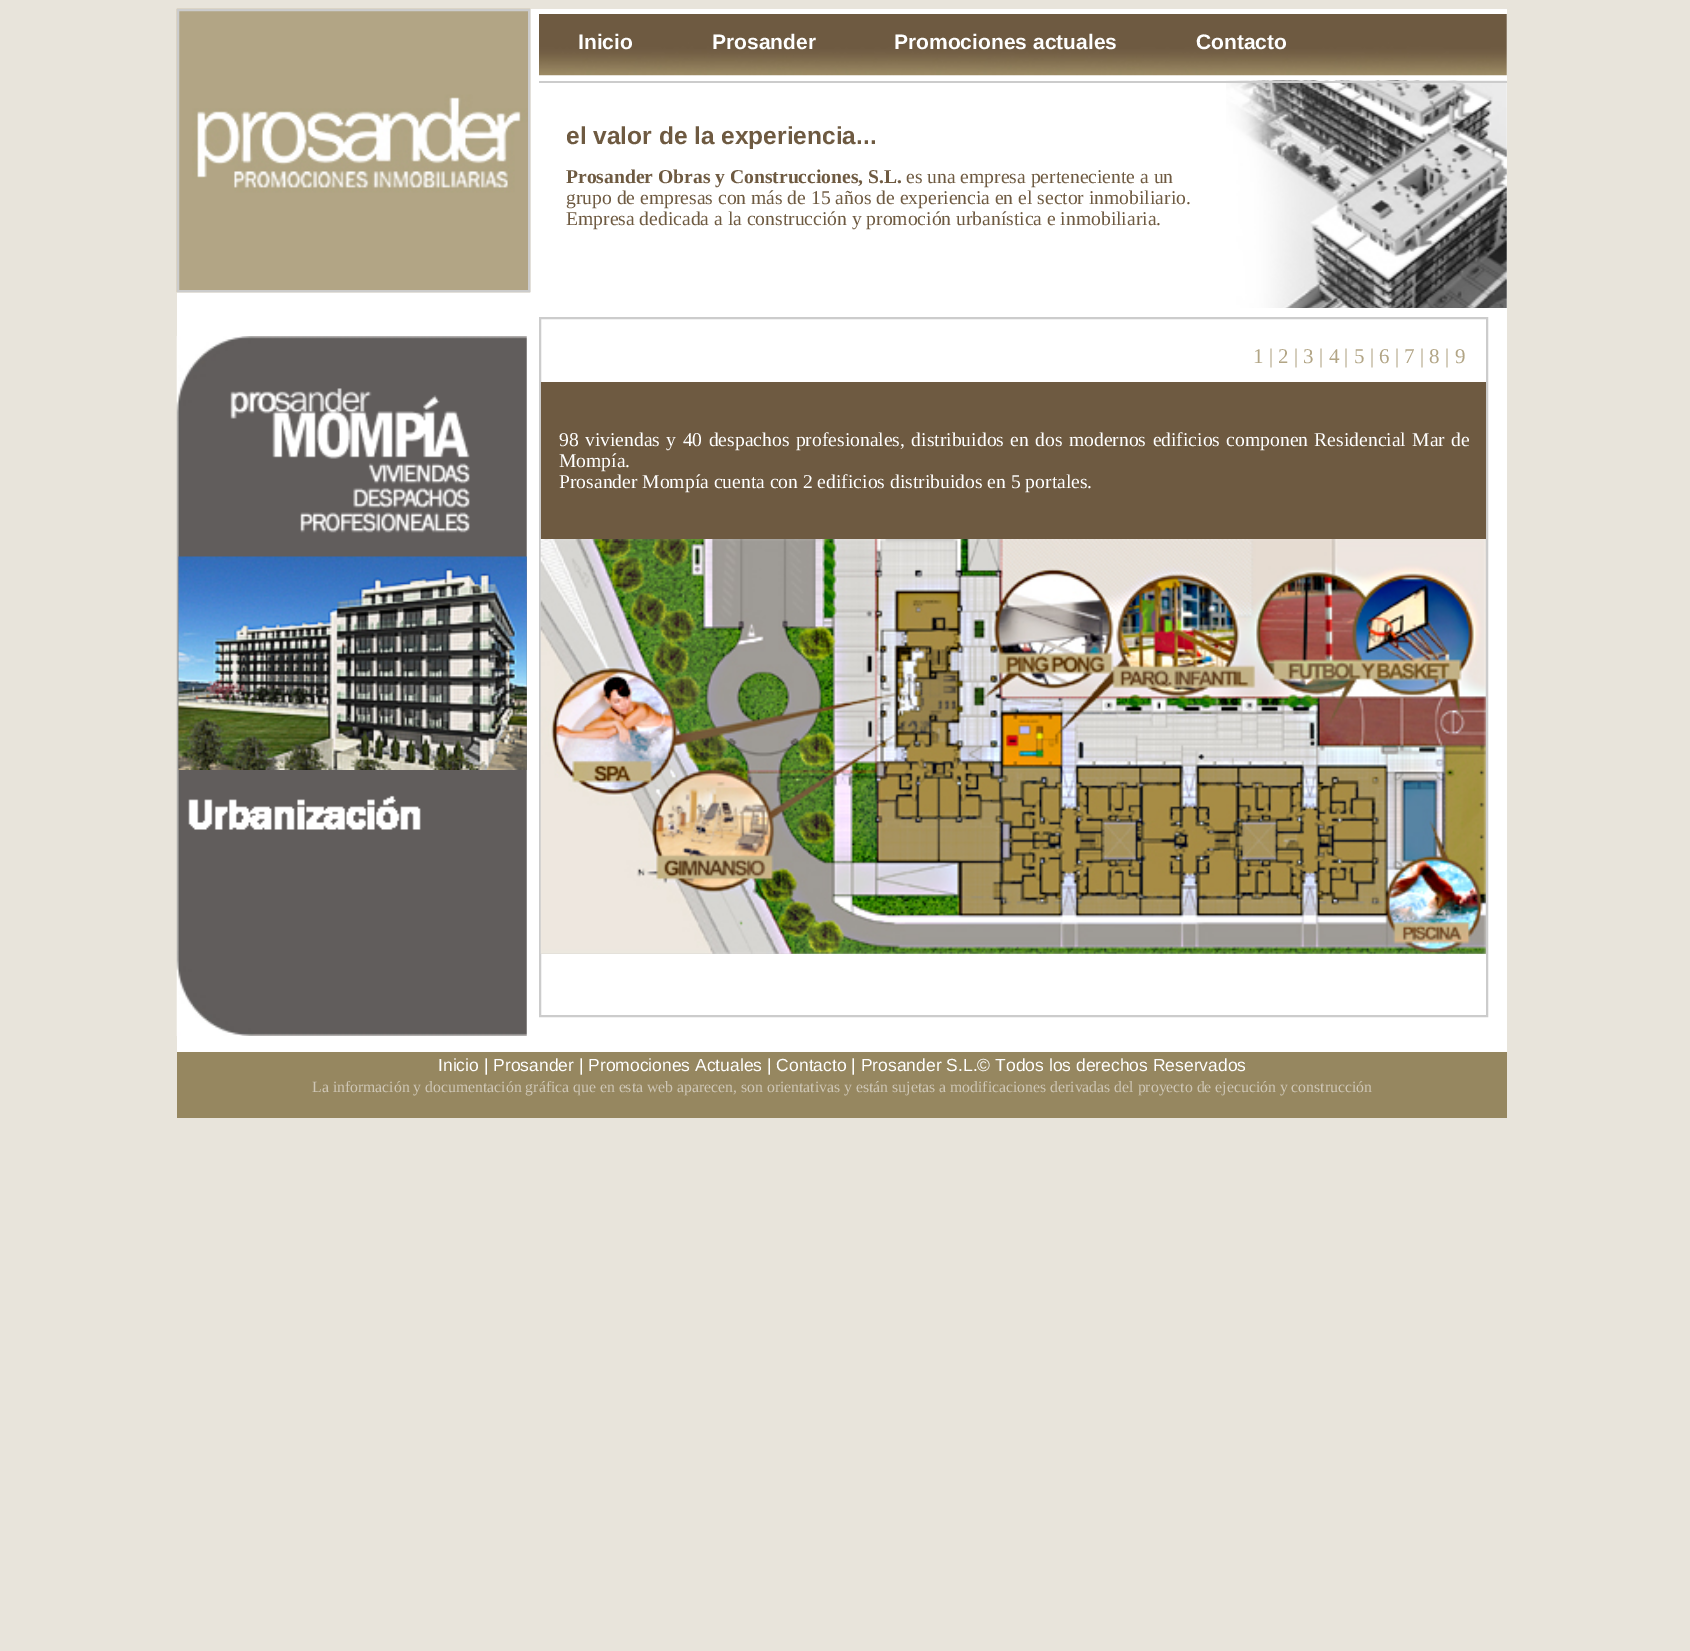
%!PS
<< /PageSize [1690 1651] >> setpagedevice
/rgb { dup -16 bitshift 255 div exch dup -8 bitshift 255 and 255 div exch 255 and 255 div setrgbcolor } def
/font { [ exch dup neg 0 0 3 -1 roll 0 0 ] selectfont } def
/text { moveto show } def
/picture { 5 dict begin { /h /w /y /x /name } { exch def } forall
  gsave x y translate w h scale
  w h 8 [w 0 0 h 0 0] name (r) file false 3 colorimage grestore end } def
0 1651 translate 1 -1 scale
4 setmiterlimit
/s1 { /LiberationSans-Bold 21 font 16#FFFFFF rgb } def
/s2 { /LiberationSans-Bold 24.5 font 16#6E5A41 rgb } def
/s3 { /LiberationSerif-Bold 19.6 font 16#6E5A41 rgb } def
/s4 { /LiberationSerif-Regular 19.6 font 16#6E5A41 rgb } def
/s5 { /LiberationSerif-Regular 21 font 16#B2A585 rgb } def
/s6 { /LiberationSerif-Regular 19.6 font 16#FFFFFF rgb } def
/s7 { /LiberationSans-Regular 17.5 font 16#FFFFFF rgb } def
/s8 { /LiberationSerif-Regular 15.75 font 16#CEC6B5 rgb } def
16#E8E4DB rgb
0 0 1690 1651 rectfill
16#FFFFFF rgb
177 9 1330 1043 rectfill
(pic1.raw) 176 8 355 285 picture
16#CCCCCC rgb
2 setlinewidth
178 10 351 281 rectstroke
(pic2.raw) 176 336 351 700 picture
(pic3.raw) 230 388 240 145 picture
(pic4.raw) 178 556 349 214 picture
(pic5.raw) 188 795 233 35 picture
(pic6.raw) 539 14 968 62 picture
s1
(Inicio) 578 49 text
(Prosander) 712 49 text
(Promociones actuales) 894 49 text
(Contacto) 1196 49 text
(pic7.raw) 1226 80 281 228 picture
16#CCCCCC rgb
539 81 968 2 rectfill
s2
(el valor de la experiencia...) 566 144 text
s3
(Prosander Obras y Construcciones, S.L.) 566 183 text
s4
(es una empresa perteneciente a un) 906 183 text
(grupo de empresas con más de 15 años de experiencia en el sector inmobiliario.) 566 204 text
(Empresa dedicada a la construcción y promoción) 566 225 text
(urbanística e inmobiliaria.) 956 225 text
16#CCCCCC rgb
540 318 947 698 rectstroke
s5
(1 | 2 | 3 | 4 | 5 | 6 | 7 | 8 | 9) 1253 363 text
16#6E5A41 rgb
541 382 945 157 rectfill
/LiberationSerif-Regular 19.6 font
16#FFFFFF rgb
559 446 moveto 1.5 0 32 (98 viviendas y 40 despachos profesionales, distribuidos en dos modernos edificios componen Residencial Mar de) widthshow
(Mompía.) 559 467 text
(Prosander Mompía cuenta con 2 edificios distribuidos en 5 portales.) 559 488 text
16#CCCCCC rgb
541 539 945 415 rectfill
(pic8.raw) 540 539 946 415 picture
16#968760 rgb
177 1052 1330 66 rectfill
s7
(Inicio | Prosander | Promociones Actuales | Contacto | Prosander S.L.© Todos los derechos Reservados) 438 1071 text
s8
(La información y documentación gráfica que en esta web aparecen, son orientativas y están sujetas a modificaciones derivadas del proyecto de ejecución y construcción) 312 1092 text
showpage
